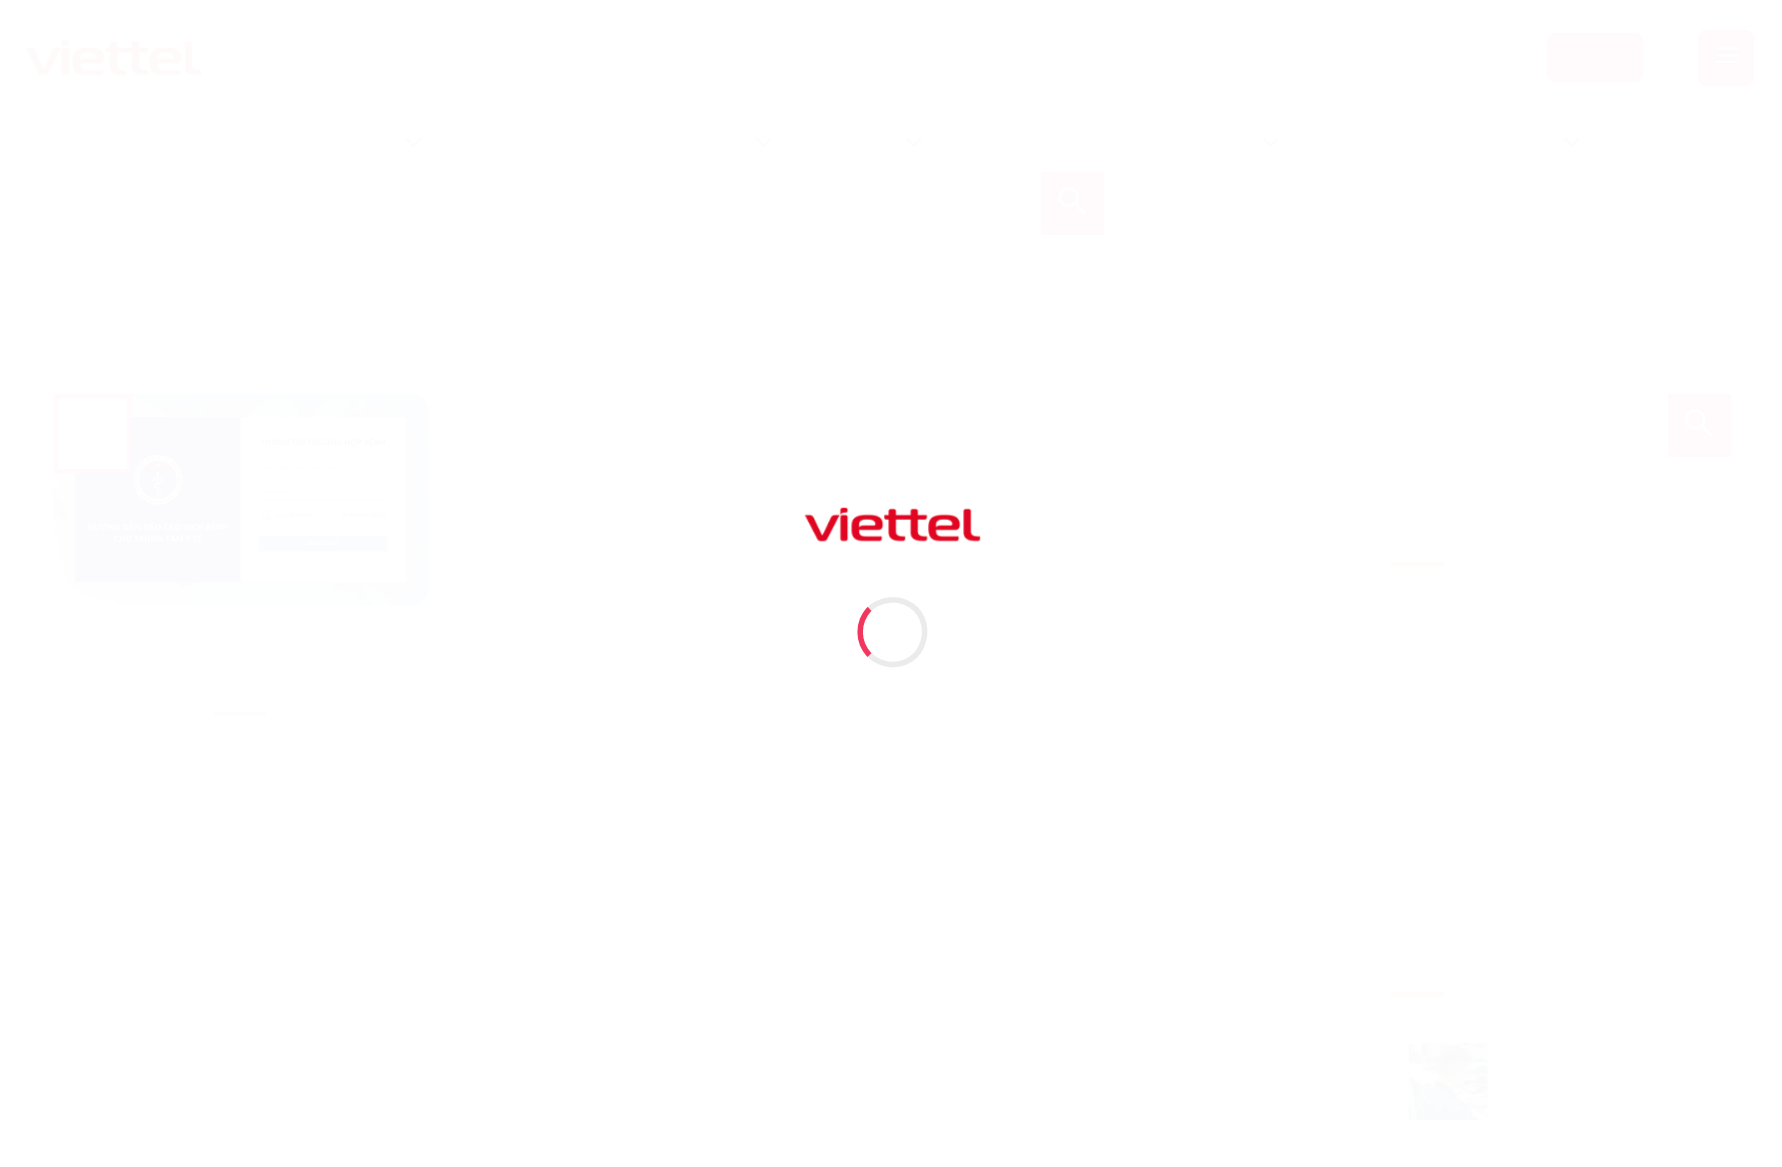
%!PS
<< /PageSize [1782 1167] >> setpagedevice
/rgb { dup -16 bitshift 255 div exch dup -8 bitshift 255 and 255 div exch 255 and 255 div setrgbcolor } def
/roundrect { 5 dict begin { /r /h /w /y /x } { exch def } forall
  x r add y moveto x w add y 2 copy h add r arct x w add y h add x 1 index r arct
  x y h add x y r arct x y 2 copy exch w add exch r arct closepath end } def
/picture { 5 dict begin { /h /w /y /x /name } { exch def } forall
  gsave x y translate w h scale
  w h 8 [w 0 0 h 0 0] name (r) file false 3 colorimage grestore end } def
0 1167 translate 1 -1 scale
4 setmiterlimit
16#FFFFFF rgb
0 0 1782 1167 rectfill
(pic1.raw) 26 40 176 36 picture
16#FFFAFB rgb
1547 33 96 49 9 roundrect fill
1698 30 56 56 9 roundrect fill
(pic2.raw) 1715 47 23 17 picture
(pic3.raw) 405 138 16 9 picture
(pic3.raw) 755 138 16 9 picture
(pic4.raw) 906 138 16 9 picture
(pic4.raw) 1263 138 16 9 picture
(pic4.raw) 1564 138 16 9 picture
1041 172 63 63 rectfill
(pic5.raw) 1058 186 29 29 picture
(pic6.raw) 52 394 377 212 picture
16#FFFFFF rgb
56 396 moveto 129 396 lineto 129 471 lineto 56 471 lineto closepath gsave fill grestore
16#FFFAFB rgb
4 setlinewidth
stroke
gsave 214 712 moveto 266 712 lineto 266 716 lineto 214 716 lineto closepath clip newpath
<< /ShadingType 2 /ColorSpace /DeviceRGB /Coords [219 726 274 694] /Extend [true true] /Function << /FunctionType 3 /Domain [0 1] /Functions [<< /FunctionType 2 /Domain [0 1] /C0 [0.996 0.992 0.984] /C1 [0.996 0.992 0.984] /N 1 >> << /FunctionType 2 /Domain [0 1] /C0 [0.996 0.992 0.984] /C1 [0.996 0.992 0.984] /N 1 >> << /FunctionType 2 /Domain [0 1] /C0 [0.996 0.992 0.984] /C1 [1 1 0.992] /N 1 >>] /Bounds [0.07 0.52] /Encode [0 1 0 1 0 1] >> >> shfill grestore
1668 394 63 63 rectfill
(pic7.raw) 1684 409 29 28 picture
gsave 1391 562 moveto 1444 562 lineto 1444 567 lineto 1391 567 lineto closepath clip newpath
<< /ShadingType 2 /ColorSpace /DeviceRGB /Coords [1397 576 1452 544] /Extend [true true] /Function << /FunctionType 3 /Domain [0 1] /Functions [<< /FunctionType 2 /Domain [0 1] /C0 [0.996 0.992 0.984] /C1 [0.996 0.992 0.984] /N 1 >> << /FunctionType 2 /Domain [0 1] /C0 [0.996 0.992 0.984] /C1 [0.996 0.992 0.984] /N 1 >> << /FunctionType 2 /Domain [0 1] /C0 [0.996 0.992 0.984] /C1 [1 1 0.992] /N 1 >>] /Bounds [0.07 0.52] /Encode [0 1 0 1 0 1] >> >> shfill grestore
gsave 1391 992 moveto 1444 992 lineto 1444 997 lineto 1391 997 lineto closepath clip newpath
<< /ShadingType 2 /ColorSpace /DeviceRGB /Coords [1397 1007 1452 975] /Extend [true true] /Function << /FunctionType 3 /Domain [0 1] /Functions [<< /FunctionType 2 /Domain [0 1] /C0 [0.996 0.992 0.984] /C1 [0.996 0.992 0.984] /N 1 >> << /FunctionType 2 /Domain [0 1] /C0 [0.996 0.992 0.984] /C1 [0.996 0.992 0.984] /N 1 >> << /FunctionType 2 /Domain [0 1] /C0 [0.996 0.992 0.984] /C1 [1 1 0.992] /N 1 >>] /Bounds [0.07 0.52] /Encode [0 1 0 1 0 1] >> >> shfill grestore
(pic8.raw) 1408 1042 80 78 picture
(pic9.raw) 804 507 177 35 picture
16#EBEBEB rgb
5.2 setlinewidth
869.5 609 moveto 877 601.5 888.5 598.5 899 600.5 curveto 937 608 931 664.5 892.5 664.5 curveto 884 664.5 875.5 661 869.5 655 curveto stroke
16#F2375F rgb
869.5 655 moveto 857 642.5 857 621.5 869.5 609 curveto stroke
showpage
